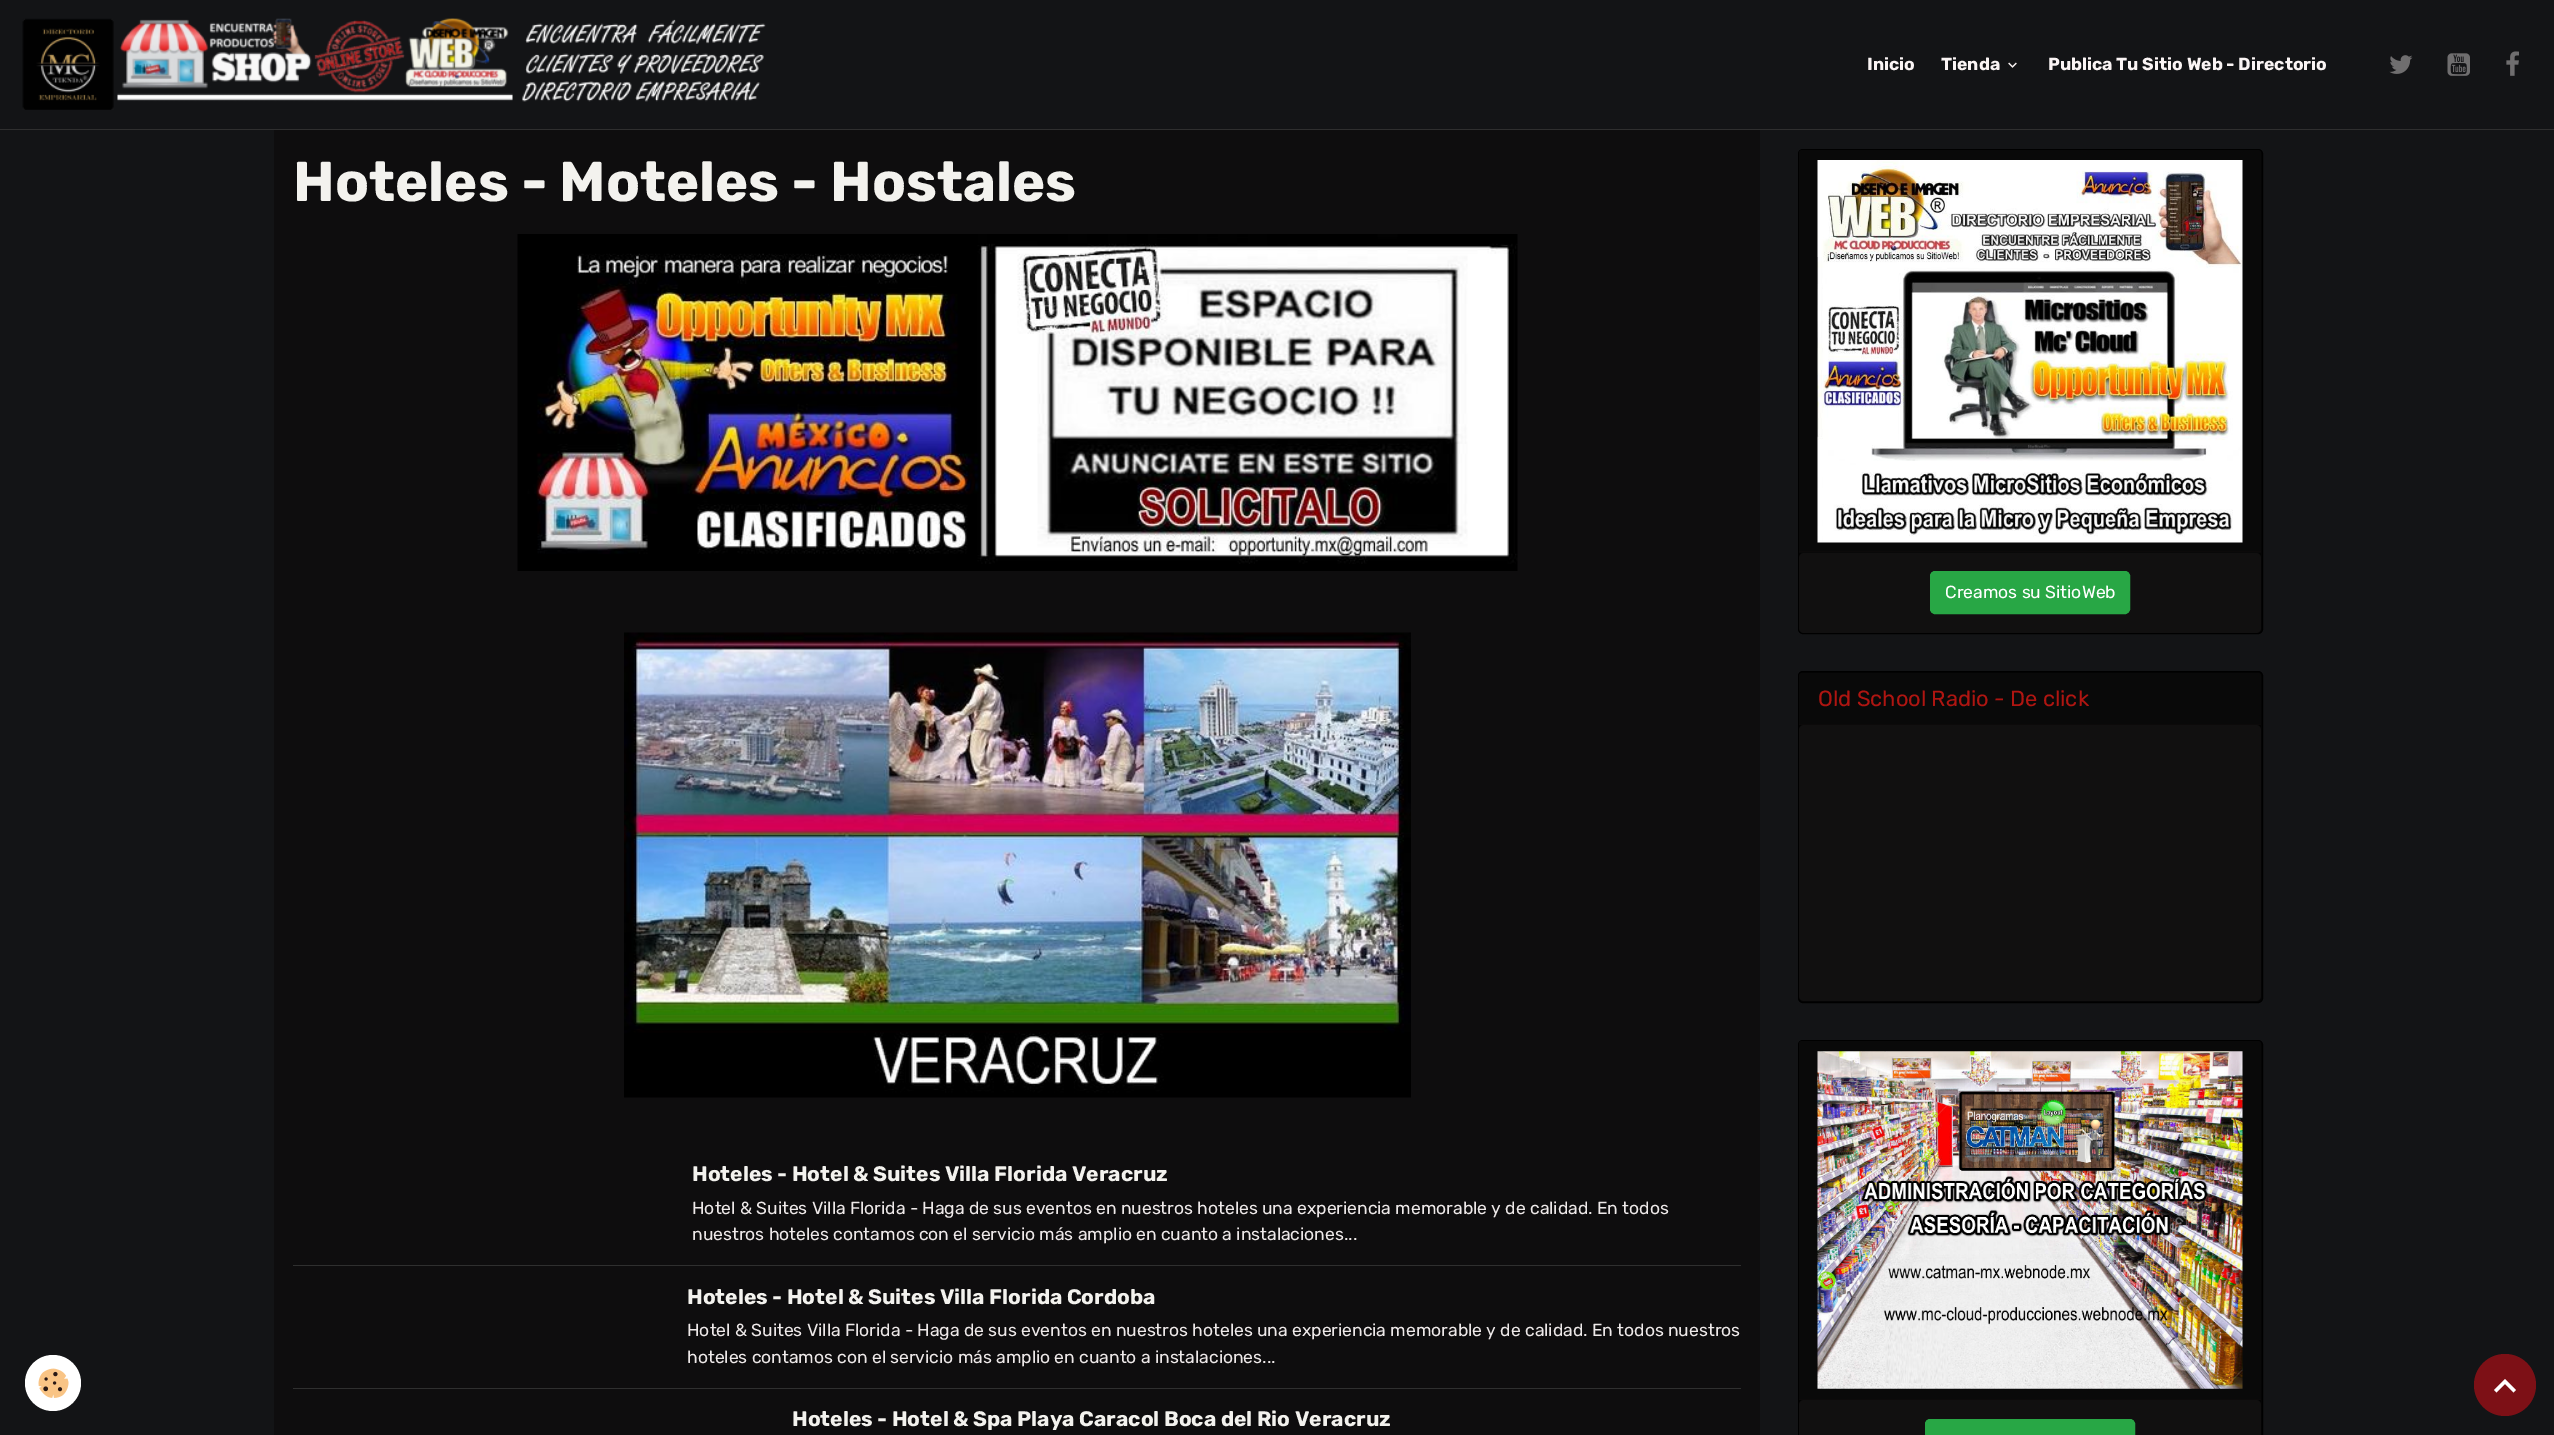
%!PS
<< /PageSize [2554 1435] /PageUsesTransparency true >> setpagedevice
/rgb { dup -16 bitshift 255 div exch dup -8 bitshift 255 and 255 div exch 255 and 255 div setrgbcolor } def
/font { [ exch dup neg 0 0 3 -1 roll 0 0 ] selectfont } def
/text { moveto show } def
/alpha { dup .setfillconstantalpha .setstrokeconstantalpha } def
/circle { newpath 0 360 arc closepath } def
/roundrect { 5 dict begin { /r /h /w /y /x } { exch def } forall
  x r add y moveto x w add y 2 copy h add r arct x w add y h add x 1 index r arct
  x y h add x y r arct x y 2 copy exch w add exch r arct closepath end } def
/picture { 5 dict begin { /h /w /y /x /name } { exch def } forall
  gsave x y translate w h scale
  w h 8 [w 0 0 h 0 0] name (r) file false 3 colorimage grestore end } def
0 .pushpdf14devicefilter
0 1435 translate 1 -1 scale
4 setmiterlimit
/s1 { /Rubik-Bold 17.5 font 16#FAF4F4 rgb } def
/s2 { /Rubik-Bold 56 font 16#F3F2EE rgb } def
/s3 { /Rubik-Bold 21 font 16#F3F2EE rgb } def
/s4 { /Rubik-Regular 17.5 font 16#EEE9E9 rgb } def
/s5 { /Rubik-Regular 17.5 font 16#FFFFFF rgb } def
/s6 { /Rubik-Regular 21.9 font 16#AF1511 rgb } def
16#131416 rgb
0 0 2554 1435 rectfill
16#FFFFFF rgb
53 1383 28 circle fill
(pic1.raw) 38 1368 31 30 picture
16#2F2F2F rgb
0 129 2554 1 rectfill
(pic2.raw) 22 18 744 92 picture
s1
(Inicio) 1867 70 text
(Tienda) 1941 70 text
(pic3.raw) 2008 62 9 6 picture
(Publica Tu Sitio Web - Directorio) 2048 70 text
(pic4.raw) 2389 55 24 19 picture
(pic5.raw) 2447 53 23 23 picture
(pic6.raw) 2506 51 13 25 picture
16#0E0D0E rgb
274 130 1486 1305 rectfill
s2
(Hoteles - Moteles - Hostales) 293 201 text
(pic7.raw) 517 234 1001 337 picture
(pic8.raw) 624 632 787 466 picture
s3
(Hoteles - Hotel & Suites Villa Florida Veracruz) 692 1181 text
s4
(Hotel & Suites Villa Florida - Haga de sus eventos en nuestros hoteles una experiencia memorable y de calidad. En todos) 692 1214 text
(nuestros hoteles contamos con el servicio más amplio en cuanto a instalaciones...) 692 1240 text
16#2F2F2F rgb
293 1265 1448 1 rectfill
s3
(Hoteles - Hotel & Suites Villa Florida Cordoba) 687 1304 text
s4
(Hotel & Suites Villa Florida - Haga de sus eventos en nuestros hoteles una experiencia memorable y de calidad. En todos nuestros) 687 1336 text
(hoteles contamos con el servicio más amplio en cuanto a instalaciones...) 687 1363 text
16#2F2F2F rgb
293 1388 1448 1 rectfill
s3
(Hoteles - Hotel & Spa Playa Caracol Boca del Rio Veracruz) 792 1426 text
16#040404 rgb
1798 149 465 485 5 roundrect fill
0.95 alpha
16#000000 rgb
1798.5 149.5 464 484 4.5 roundrect stroke
1 alpha
16#090909 rgb
1802 150 moveto 2258 150 lineto 2259.5 150 2261 151.5 2261 153 curveto 2261 553 lineto 1799 553 lineto 1799 153 lineto 1799 151.5 1800.5 150 1802 150 curveto closepath fill
16#0C0A0A rgb
1799 551 462 1 rectfill
(pic9.raw) 1817 160 426 383 picture
16#111010 rgb
1799 553 462 80 5 roundrect fill
16#28A745 rgb
1930.5 571.5 199 42 4.5 roundrect gsave fill grestore
stroke
s5
(Creamos su SitioWeb) 1945 598 text
16#040404 rgb
1798 671 465 332 5 roundrect fill
0.95 alpha
16#000000 rgb
1798.5 671.5 464 331 4.5 roundrect stroke
1 alpha
16#090909 rgb
1802 673 moveto 2258 673 lineto 2259.5 673 2261 674.5 2261 676 curveto 2261 725 lineto 1799 725 lineto 1799 676 lineto 1799 674.5 1800.5 673 1802 673 curveto closepath fill
16#0C0A0A rgb
1799 724 462 1 rectfill
s6
(Old School Radio - De click) 1818 706 text
16#111010 rgb
1799 725 462 276 5 roundrect fill
16#040404 rgb
1798 1040 465 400 5 roundrect fill
0.95 alpha
16#000000 rgb
1798.5 1040.5 464 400 4.5 roundrect stroke
1 alpha
16#090909 rgb
1802 1041 moveto 2258 1041 lineto 2259.5 1041 2261 1042.5 2261 1044 curveto 2261 1400 lineto 1799 1400 lineto 1799 1044 lineto 1799 1042.5 1800.5 1041 1802 1041 curveto closepath fill
16#0C0A0A rgb
1799 1399 462 1 rectfill
(pic10.raw) 1817 1051 426 338 picture
16#111010 rgb
1799 1400 462 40 5 roundrect fill
16#28A745 rgb
1925.5 1419.5 209 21 4.5 roundrect gsave fill grestore
stroke
16#7D1016 rgb
2505 1385 31 circle fill
16#FFFFFF rgb
2505 1379 moveto 2516 1390 lineto 2513.5 1392.5 lineto 2505 1384 lineto 2496.5 1392.5 lineto 2494 1390 lineto closepath fill
.poppdf14devicefilter showpage
